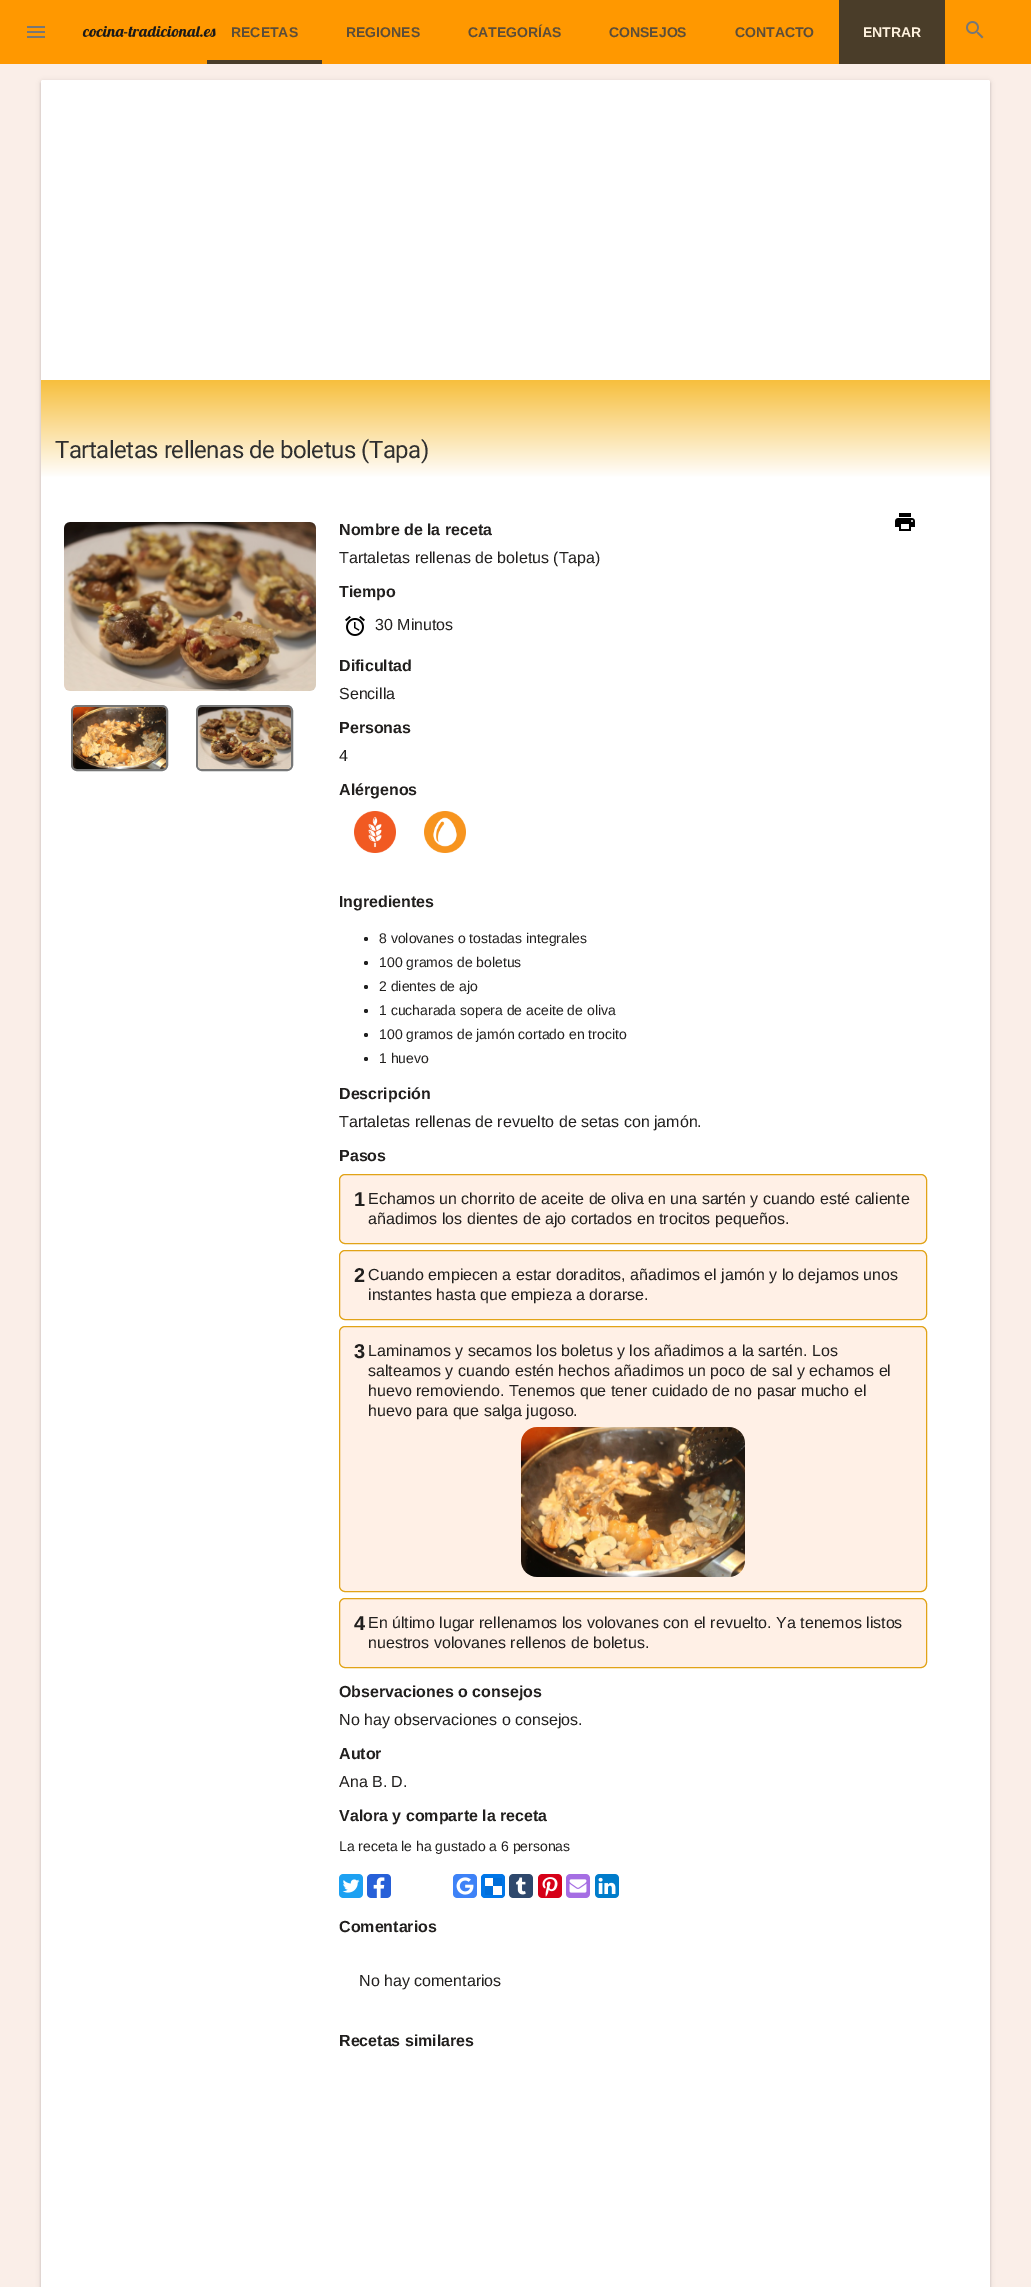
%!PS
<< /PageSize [1031 2287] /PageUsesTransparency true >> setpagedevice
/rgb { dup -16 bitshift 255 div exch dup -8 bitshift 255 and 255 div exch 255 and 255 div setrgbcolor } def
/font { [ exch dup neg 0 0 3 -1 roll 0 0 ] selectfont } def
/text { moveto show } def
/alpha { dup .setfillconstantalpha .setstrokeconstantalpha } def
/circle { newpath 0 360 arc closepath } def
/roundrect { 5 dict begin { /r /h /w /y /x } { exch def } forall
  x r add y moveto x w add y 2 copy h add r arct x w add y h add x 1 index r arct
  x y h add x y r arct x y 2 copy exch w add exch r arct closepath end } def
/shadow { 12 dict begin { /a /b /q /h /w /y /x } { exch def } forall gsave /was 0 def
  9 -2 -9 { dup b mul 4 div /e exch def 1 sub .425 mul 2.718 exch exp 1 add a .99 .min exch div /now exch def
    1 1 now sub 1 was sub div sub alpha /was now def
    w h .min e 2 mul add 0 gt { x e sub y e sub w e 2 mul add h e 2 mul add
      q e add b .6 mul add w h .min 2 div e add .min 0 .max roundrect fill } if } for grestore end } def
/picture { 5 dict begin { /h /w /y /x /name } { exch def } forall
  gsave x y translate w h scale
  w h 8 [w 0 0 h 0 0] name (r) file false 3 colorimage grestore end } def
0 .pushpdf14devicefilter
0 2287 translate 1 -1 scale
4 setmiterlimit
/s1 { /LiberationSans-Bold 14 font 16#5B4D39 rgb } def
/s2 { /LiberationSans-Bold 14 font 16#FFF2DE rgb } def
/s3 { /LiberationSans-Bold 16 font 16#211F1E rgb } def
/s4 { /LiberationSans-Regular 16 font 16#211F1E rgb } def
/s5 { /LiberationSans-Regular 14 font 16#211F1E rgb } def
/s6 { /LiberationSans-Bold 20 font 16#211F1E rgb } def
16#FAEEE8 rgb
0 0 1031 2287 rectfill
16#FF9800 rgb
0 0 1031 64 rectfill
(pic1.raw) 27 26 18 12 picture
(pic2.raw) 82 26 134 11 picture
16#4A3D29 rgb
207 60 115 4 rectfill
s1
(RECETAS) 231 37 text
(REGIONES) 346 37 text
(CATEGORÍAS) 468 37 text
(CONSEJOS) 609 37 text
(CONTACTO) 735 37 text
16#4A3D29 rgb
839 0 106 64 rectfill
s2
(ENTRAR) 863 37 text
(pic3.raw) 966 21 18 18 picture
16#000000 rgb
41 81 949 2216 2 2.5 0.12 shadow
41 82 949 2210 2 1 0.14 shadow
16#FFFFFF rgb
41 80 949 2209 2 roundrect fill
gsave 41 380 moveto 990 380 lineto 990 477 lineto 41 477 lineto closepath clip newpath
<< /ShadingType 2 /ColorSpace /DeviceRGB /Coords [516 380 516 478] /Extend [true true] /Function << /FunctionType 2 /Domain [0 1] /C0 [0.969 0.749 0.239] /C1 [1 1 1] /N 1 >> >> shfill grestore
/Roboto-Regular 24 font
16#2F2F2F rgb
55 458 moveto -0.5 0 (Tartaletas rellenas de boletus \(Tapa\)) ashow
(pic4.raw) 64 522 252 169 picture
16#767777 rgb
2 setlinewidth
72 706 95 64 5 roundrect stroke
197 706 95 64 5 roundrect stroke
(pic5.raw) 73 707 93 62 picture
(pic6.raw) 198 707 93 62 picture
s3
(Nombre de la receta) 339 535 text
s4
(Tartaletas rellenas de boletus \(Tapa\)) 339 563 text
(pic7.raw) 895 513 20 18 picture
s3
(Tiempo) 339 597 text
(pic8.raw) 345 616 20 20 picture
s4
(30 Minutos) 375 630 text
s3
(Dificultad) 339 671 text
s4
(Sencilla) 339 699 text
s3
(Personas) 339 733 text
s4
(4) 339 761 text
s3
(Alérgenos) 339 795 text
(pic9.raw) 354 811 42 42 picture
(pic10.raw) 424 811 42 42 picture
(Ingredientes) 339 907 text
16#212121 rgb
366 939 2 circle fill
s5
(8 volovanes o tostadas integrales) 379 943 text
16#212121 rgb
366 963 2 circle fill
s5
(100 gramos de boletus) 379 967 text
16#212121 rgb
366 987 2 circle fill
s5
(2 dientes de ajo) 379 991 text
16#212121 rgb
366 1011 2 circle fill
s5
(1 cucharada sopera de aceite de oliva) 379 1015 text
16#212121 rgb
366 1035 2 circle fill
s5
(100 gramos de jamón cortado en trocito) 379 1039 text
16#212121 rgb
366 1059 2 circle fill
s5
(1 huevo) 379 1063 text
s3
(Descripción) 339 1099 text
s4
(Tartaletas rellenas de revuelto de setas con jamón.) 339 1127 text
s3
(Pasos) 339 1161 text
16#FFF0E6 rgb
339.5 1174.5 587 69 5.5 roundrect gsave fill grestore
16#E1A317 rgb
1 setlinewidth
stroke
s6
(1) 354 1206 text
s4
(Echamos un chorrito de aceite de oliva en una sartén y cuando esté caliente) 368 1204 text
(añadimos los dientes de ajo cortados en trocitos pequeños.) 368 1224 text
16#FFF0E6 rgb
339.5 1250.5 587 69 5.5 roundrect gsave fill grestore
16#E1A317 rgb
stroke
s6
(2) 354 1282 text
s4
(Cuando empiecen a estar doraditos, añadimos el jamón y lo dejamos unos) 368 1280 text
(instantes hasta que empieza a dorarse.) 368 1300 text
16#FFF0E6 rgb
339.5 1326.5 587 265 5.5 roundrect gsave fill grestore
16#E1A317 rgb
stroke
s6
(3) 354 1358 text
s4
(Laminamos y secamos los boletus y los añadimos a la sartén. Los) 368 1356 text
(salteamos y cuando estén hechos añadimos un poco de sal y echamos el) 368 1376 text
(huevo removiendo. Tenemos que tener cuidado de no pasar mucho el) 368 1396 text
(huevo para que salga jugoso.) 368 1416 text
(pic11.raw) 521 1427 224 150 picture
16#FFF0E6 rgb
339.5 1598.5 587 69 5.5 roundrect gsave fill grestore
16#E1A317 rgb
stroke
s6
(4) 354 1630 text
s4
(En último lugar rellenamos los volovanes con el revuelto. Ya tenemos listos) 368 1628 text
(nuestros volovanes rellenos de boletus.) 368 1648 text
s3
(Observaciones o consejos) 339 1697 text
s4
(No hay observaciones o consejos.) 339 1725 text
s3
(Autor) 339 1759 text
s4
(Ana B. D.) 339 1787 text
s3
(Valora y comparte la receta) 339 1821 text
s5
(La receta le ha gustado a 6 personas) 339 1851 text
(pic12.raw) 339 1874 24 24 picture
(pic13.raw) 367 1874 24 24 picture
(pic14.raw) 453 1874 24 24 picture
16#0076E8 rgb
481 1874 24 24 4 roundrect fill
16#FFFFFF rgb
485 1878 8 8 rectfill
16#006ED9 rgb
493 1878 9 8 rectfill
485 1886 8 9 rectfill
16#FFFFFF rgb
493 1886 9 9 rectfill
(pic15.raw) 509 1874 24 24 picture
(pic16.raw) 538 1874 24 24 picture
(pic17.raw) 566 1874 24 24 picture
(pic18.raw) 595 1874 24 24 picture
s3
(Comentarios) 339 1932 text
s4
(No hay comentarios) 359 1986 text
s3
(Recetas similares) 339 2046 text
.poppdf14devicefilter showpage
